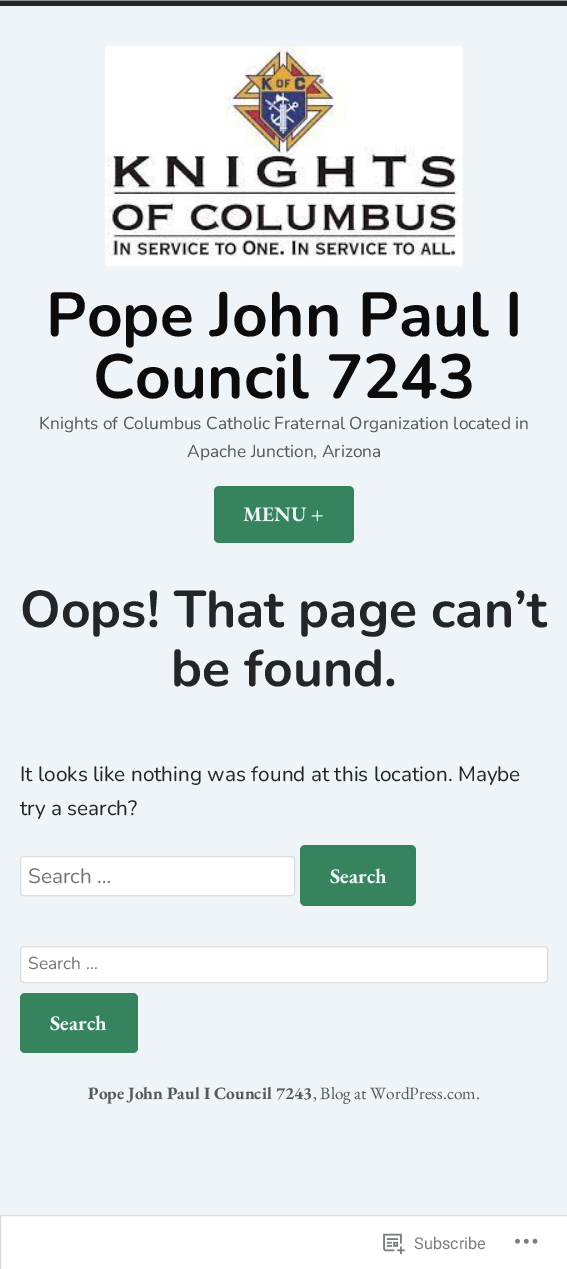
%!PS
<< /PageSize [567 1269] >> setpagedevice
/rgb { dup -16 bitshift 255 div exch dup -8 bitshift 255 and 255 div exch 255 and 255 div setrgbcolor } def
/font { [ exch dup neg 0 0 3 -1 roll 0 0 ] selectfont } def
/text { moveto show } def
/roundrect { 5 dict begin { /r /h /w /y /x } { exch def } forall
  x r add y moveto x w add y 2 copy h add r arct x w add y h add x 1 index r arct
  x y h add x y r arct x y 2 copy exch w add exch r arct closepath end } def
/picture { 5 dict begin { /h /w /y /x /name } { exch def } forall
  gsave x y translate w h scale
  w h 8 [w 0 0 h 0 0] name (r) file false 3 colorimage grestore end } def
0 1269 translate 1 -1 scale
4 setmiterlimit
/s1 { /Nunito-Bold 62.25 font 16#0C0C0D rgb } def
/s2 { /Nunito-Regular 17.35 font 16#55585C rgb } def
/s3 { /EBGaramond-Bold 20.8 font 16#EEF4F7 rgb } def
/s4 { /Nunito-Bold 51.75 font 16#242527 rgb } def
/s5 { /Nunito-Regular 20.8 font 16#242527 rgb } def
/s6 { /Nunito-Regular 20.8 font 16#757575 rgb } def
/s7 { /Nunito-Regular 17.35 font 16#757575 rgb } def
/s8 { /EBGaramond-Bold 17.35 font 16#55585C rgb } def
/s9 { /EBGaramond-Regular 17.35 font 16#55585C rgb } def
/s10 { /Roboto-Regular 16.25 font 16#7A7E84 rgb } def
16#EEF4F7 rgb
0 0 567 1269 rectfill
16#242527 rgb
0 1 567 5 rectfill
16#929293 rgb
0 0 567 1 rectfill
(pic1.raw) 105 46 358 221 picture
s1
(Pope John Paul I) 46 336 text
(Council 7243) 93 398 text
s2
(Knights of Columbus Catholic Fraternal Organization located in) 39 429 text
(Apache Junction, Arizona) 187 457 text
16#35845D rgb
214 486 140 57 5 roundrect fill
s3
(MENU +) 243 521 text
s4
(Oops! That page can’t) 20 627 text
(be found.) 171 686 text
s5
(It looks like nothing was found at this location. Maybe) 20 781 text
(try a search?) 20 815 text
16#FFFFFF rgb
20.5 856.5 274 39 3.5 roundrect gsave fill grestore
16#DDDDDD rgb
stroke
s6
(Search …) 28 883 text
16#35845D rgb
300 845 116 61 5 roundrect fill
s3
(Search) 330 883 text
16#FFFFFF rgb
20.5 946.5 527 36 3.5 roundrect gsave fill grestore
16#DDDDDD rgb
stroke
s7
(Search …) 28 969 text
16#35845D rgb
20 993 118 60 5 roundrect fill
s3
(Search) 50 1030 text
s8
(Pope John Paul I Council 7243) 88 1099 text
s9
(, Blog at WordPress.com.) 313 1099 text
16#FFFFFF rgb
0.5 1215.5 moveto 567.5 1215.5 lineto 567.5 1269.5 lineto 0.5 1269.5 lineto closepath gsave fill grestore
16#DCDCDF rgb
stroke
(pic2.raw) 383 1233 22 22 picture
s10
(Subscribe) 414 1249 text
(pic3.raw) 515 1238 23 6 picture
showpage
